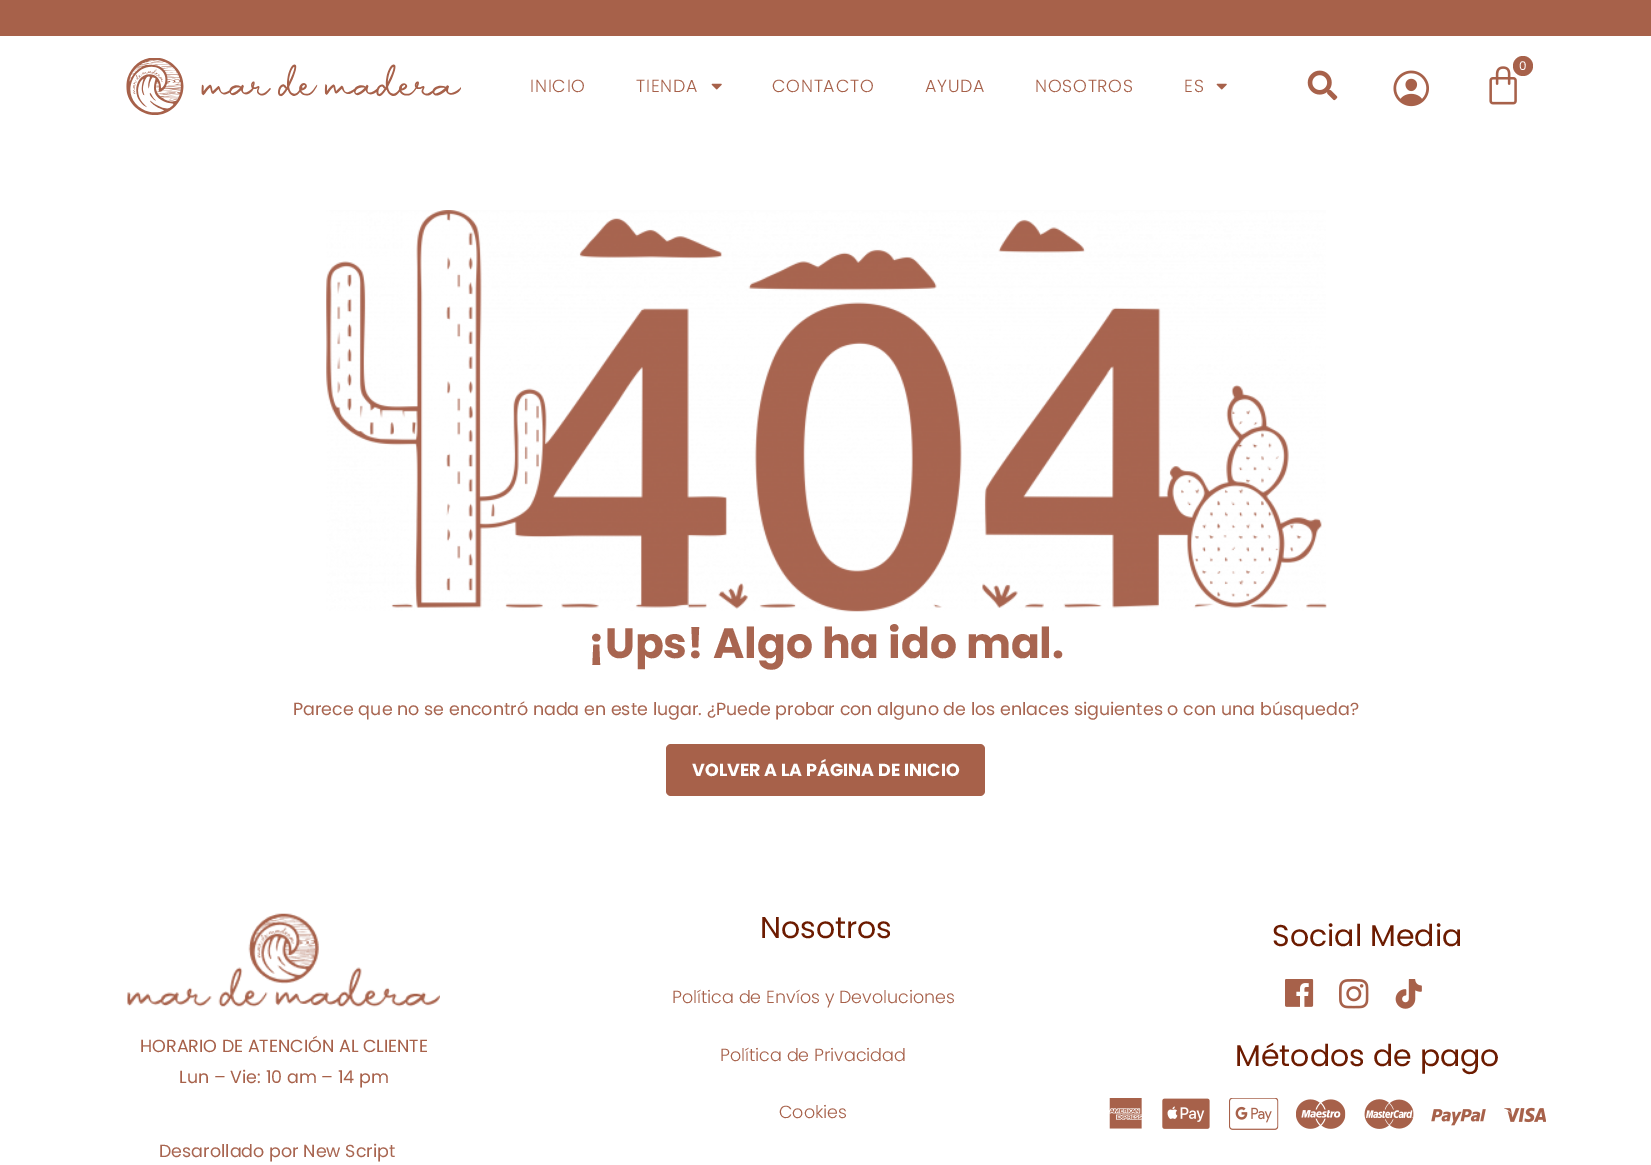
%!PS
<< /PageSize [1651 1165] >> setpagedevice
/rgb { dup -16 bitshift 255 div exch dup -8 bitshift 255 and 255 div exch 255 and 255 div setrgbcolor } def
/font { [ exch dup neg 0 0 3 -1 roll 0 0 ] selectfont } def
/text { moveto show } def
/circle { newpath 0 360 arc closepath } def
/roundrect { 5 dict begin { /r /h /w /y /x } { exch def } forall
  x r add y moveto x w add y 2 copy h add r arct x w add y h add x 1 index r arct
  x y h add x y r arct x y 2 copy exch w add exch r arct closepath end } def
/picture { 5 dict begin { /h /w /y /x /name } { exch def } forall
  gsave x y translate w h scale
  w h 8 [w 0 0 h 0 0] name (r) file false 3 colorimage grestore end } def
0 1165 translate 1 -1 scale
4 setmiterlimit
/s1 { /Poppins-Regular 12 font 16#FFFFFF rgb } def
/s2 { /Poppins-Bold 42.5 font 16#A86550 rgb } def
/s3 { /Poppins-Regular 17.5 font 16#A86550 rgb } def
/s4 { /Poppins-Bold 17.5 font 16#FFFFFF rgb } def
/s5 { /Poppins-Regular 30 font 16#6C1B00 rgb } def
/s6 { /Poppins-Light 17.5 font 16#A7614A rgb } def
/s7 { /Poppins-Regular 17.5 font 16#A7614A rgb } def
16#FFFFFF rgb
0 0 1651 1165 rectfill
16#A7614A rgb
0 0 1651 36 rectfill
(pic1.raw) 126 58 335 57 picture
(pic2.raw) 1489 66 28 39 picture
1523 66 10 circle fill
s1
(0) 1519 70 text
/Poppins-Light 17.5 font
16#A7614A rgb
530 92 moveto 0.75 0 (INICIO) ashow
636 92 moveto 0.75 0 (TIENDA) ashow
(pic3.raw) 711 83 11 7 picture
772 92 moveto 0.75 0 (CONTACTO) ashow
925 92 moveto 0.75 0 (AYUDA) ashow
1035 92 moveto 0.75 0 (NOSOTROS) ashow
1184 92 moveto 0.75 0 (ES) ashow
(pic3.raw) 1216 83 11 7 picture
(pic4.raw) 1307 70 31 31 picture
(pic5.raw) 1393 70 36 37 picture
(pic6.raw) 326 210 1001 402 picture
s2
(¡Ups! Algo ha ido mal.) 588 658 text
s3
(Parece que no se encontró nada en este lugar. ¿Puede probar con alguno de los enlaces siguientes o con una búsqueda?) 293 715 text
16#A7614A rgb
666 744 319 52 5 roundrect fill
s4
(VOLVER A LA PÁGINA DE INICIO) 692 776 text
s5
(Nosotros) 760 938 text
s6
(Política de Envíos y Devoluciones) 672 1003 text
(Política de Privacidad) 720 1061 text
(Cookies) 779 1118 text
s5
(Social Media) 1272 946 text
(pic7.raw) 1285 979 29 28 picture
(pic8.raw) 1339 979 30 30 picture
(pic9.raw) 1395 979 27 30 picture
(Métodos de pago) 1235 1066 text
(pic10.raw) 1109 1098 33 31 picture
(pic11.raw) 1162 1098 48 31 picture
(pic12.raw) 1229 1098 50 32 picture
(pic13.raw) 1296 1099 50 30 picture
(pic14.raw) 1364 1099 50 30 picture
(pic15.raw) 1431 1109 55 17 picture
(pic16.raw) 1504 1107 42 16 picture
(pic17.raw) 127 913 313 94 picture
s7
(HORARIO DE ATENCIÓN AL CLIENTE) 140 1052 text
(Lun – Vie: 10 am – 14 pm) 179 1083 text
s3
(Desarollado por New Script) 159 1157 text
showpage
